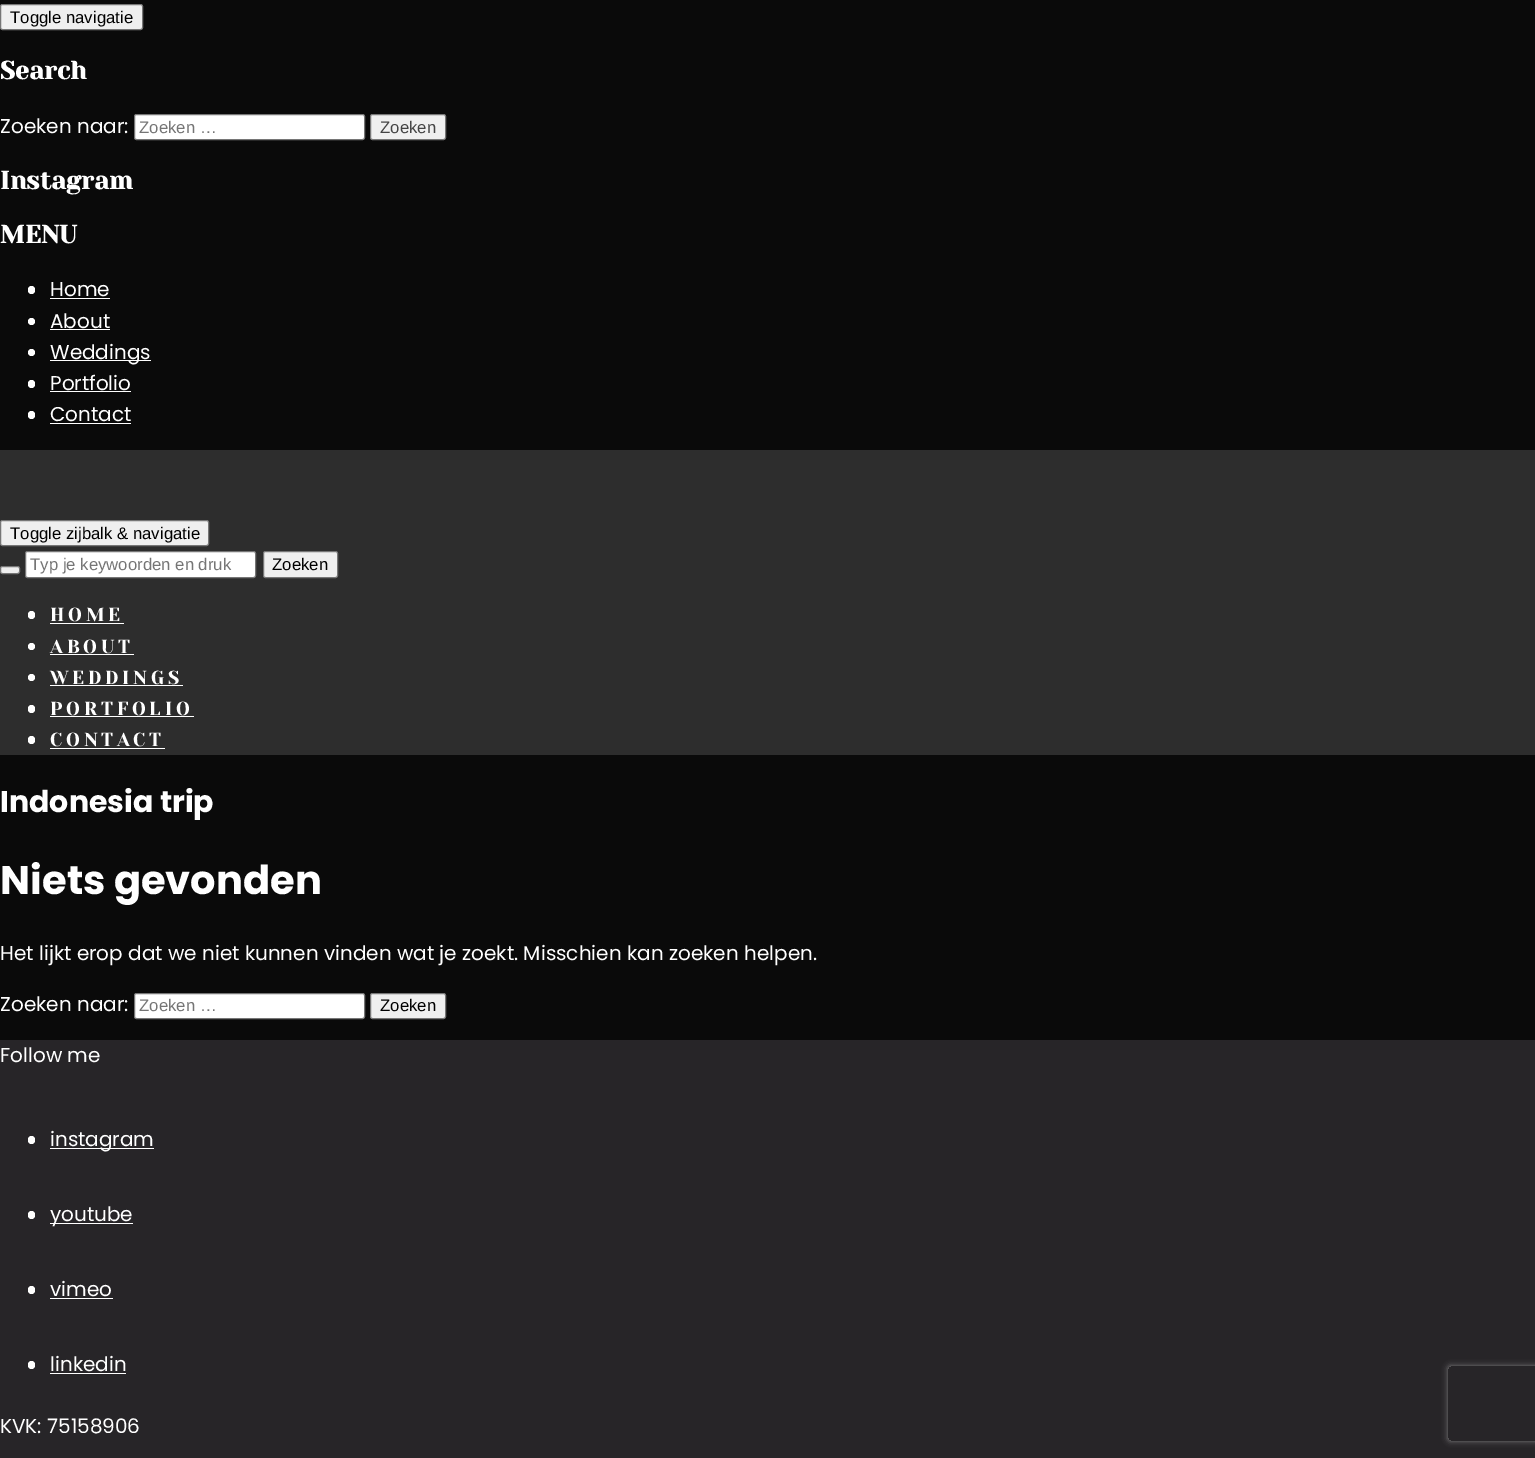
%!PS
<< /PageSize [1535 1458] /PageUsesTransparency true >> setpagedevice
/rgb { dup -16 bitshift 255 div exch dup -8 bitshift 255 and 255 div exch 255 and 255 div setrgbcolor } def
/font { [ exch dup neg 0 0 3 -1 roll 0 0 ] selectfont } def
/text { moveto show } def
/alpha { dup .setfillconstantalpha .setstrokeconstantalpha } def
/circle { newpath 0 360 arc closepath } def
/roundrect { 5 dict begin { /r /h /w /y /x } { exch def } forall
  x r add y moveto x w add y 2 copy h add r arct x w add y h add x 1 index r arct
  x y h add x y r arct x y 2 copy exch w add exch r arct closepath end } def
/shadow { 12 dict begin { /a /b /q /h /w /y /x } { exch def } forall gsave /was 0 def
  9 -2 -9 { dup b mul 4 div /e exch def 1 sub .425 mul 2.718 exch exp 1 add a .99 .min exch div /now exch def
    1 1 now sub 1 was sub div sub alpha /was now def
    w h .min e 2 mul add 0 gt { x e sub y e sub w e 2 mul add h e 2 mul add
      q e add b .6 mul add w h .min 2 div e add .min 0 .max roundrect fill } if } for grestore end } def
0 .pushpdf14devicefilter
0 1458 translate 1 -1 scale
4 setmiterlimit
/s1 { /LiberationSans-Regular 16.75 font 16#000000 rgb } def
/s2 { /YesevaOne-Bold 25 font 16#FFFFFF rgb } def
/s3 { /Poppins-Regular 20 font 16#FFFFFF rgb } def
/s4 { /LiberationSans-Regular 16.75 font 16#757575 rgb } def
/s5 { /LiberationSans-Regular 16.75 font 16#444444 rgb } def
/s6 { /Poppins-Bold 30 font 16#FFFFFF rgb } def
/s7 { /Poppins-Bold 40 font 16#FFFFFF rgb } def
16#0A0A0A rgb
0 0 1535 1458 rectfill
16#EFEFEF rgb
0.5 4.5 142 25 2 roundrect gsave fill grestore
16#767676 rgb
stroke
s1
(Toggle navigatie) 10 23 text
s2
(Search) 0 79 text
s3
(Zoeken naar:) 0 133 text
134.5 114.5 230 25 2 roundrect gsave fill grestore
16#767676 rgb
stroke
s4
(Zoeken …) 139 133 text
16#EFEFEF rgb
370.5 114.5 75 25 2 roundrect gsave fill grestore
16#767676 rgb
stroke
s5
(Zoeken) 380 133 text
s2
(Instagram) 0 189 text
(MENU) 0 243 text
28 286 7 8 3.5 roundrect fill
s3
(Home) 50 296 text
50 298 60 1 rectfill
31.5 321.5 3.5 circle fill
(About) 50 328 text
50 329 60 1 rectfill
31.5 352.5 3.5 circle fill
50 360 101 1 rectfill
(Weddings) 50 359 text
28 380 7 8 3.5 roundrect fill
(Portfolio) 50 390 text
50 391 81 1 rectfill
28 411 7 8 3.5 roundrect fill
(Contact) 50 421 text
50 423 81 1 rectfill
16#2D2D2D rgb
0 450 1535 305 rectfill
16#EFEFEF rgb
0.5 520.5 208 25 2 roundrect gsave fill grestore
16#767676 rgb
stroke
s1
(Toggle zijbalk & navigatie) 10 539 text
16#EFEFEF rgb
0.5 566.5 19 7 2 roundrect gsave fill grestore
16#767676 rgb
stroke
16#FFFFFF rgb
25.5 551.5 230 26 2 roundrect gsave fill grestore
16#767676 rgb
stroke
s4
(Typ je keywoorden en druk) 30 570 text
16#EFEFEF rgb
263.5 551.5 74 26 2 roundrect gsave fill grestore
16#767676 rgb
stroke
s1
(Zoeken) 272 570 text
16#FFFFFF rgb
28 611 7 8 3.5 roundrect fill
/YesevaOne-Regular 18.75 font
50 621 moveto 3.75 0 (HOME) ashow
50 623 74 1 rectfill
31.5 646.5 3.5 circle fill
50 653 moveto 3.75 0 (ABOUT) ashow
50 654 84 1 rectfill
31.5 677.5 3.5 circle fill
50 684 moveto 3.75 0 (WEDDINGS) ashow
50 685 133 1 rectfill
28 705 7 8 3.5 roundrect fill
50 715 moveto 3.75 0 (PORTFOLIO) ashow
50 716 144 1 rectfill
28 736 7 8 3.5 roundrect fill
50 746 moveto 3.75 0 (CONTACT) ashow
50 748 115 1 rectfill
s6
(Indonesia trip) 0 812 text
s7
(Niets gevonden) 0 894 text
s3
(Het lijkt erop dat we niet kunnen vinden wat je zoekt. Misschien kan zoeken helpen.) 0 960 text
(Zoeken naar:) 0 1011 text
134.5 993.5 230 25 2 roundrect gsave fill grestore
16#767676 rgb
stroke
s4
(Zoeken …) 139 1011 text
16#EFEFEF rgb
370.5 993.5 75 25 2 roundrect gsave fill grestore
16#767676 rgb
stroke
s1
(Zoeken) 380 1011 text
16#272528 rgb
0 1040 1535 418 rectfill
s3
(Follow me) 0 1062 text
28 1136 7 8 3.5 roundrect fill
50 1148 104 1 rectfill
(instagram) 50 1146 text
28 1211 7 8 3.5 roundrect fill
50 1223 83 1 rectfill
(youtube) 50 1221 text
28 1286 7 8 3.5 roundrect fill
(vimeo) 50 1296 text
50 1298 63 1 rectfill
28 1361 7 8 3.5 roundrect fill
(linkedin) 50 1371 text
50 1373 76 1 rectfill
(KVK: 75158906) 0 1433 text
gsave
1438 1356 moveto 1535 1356 lineto 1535 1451 lineto 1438 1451 lineto closepath 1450.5 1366 moveto 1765.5 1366 lineto 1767 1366 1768 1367 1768 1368.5 curveto 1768 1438.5 lineto 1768 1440 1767 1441 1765.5 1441 curveto 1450.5 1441 lineto 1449 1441 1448 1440 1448 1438.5 curveto 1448 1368.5 lineto 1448 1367 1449 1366 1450.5 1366 curveto closepath eoclip newpath
16#808080 rgb
1448 1366 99 75 2.5 3 1 shadow
grestore
.poppdf14devicefilter showpage
